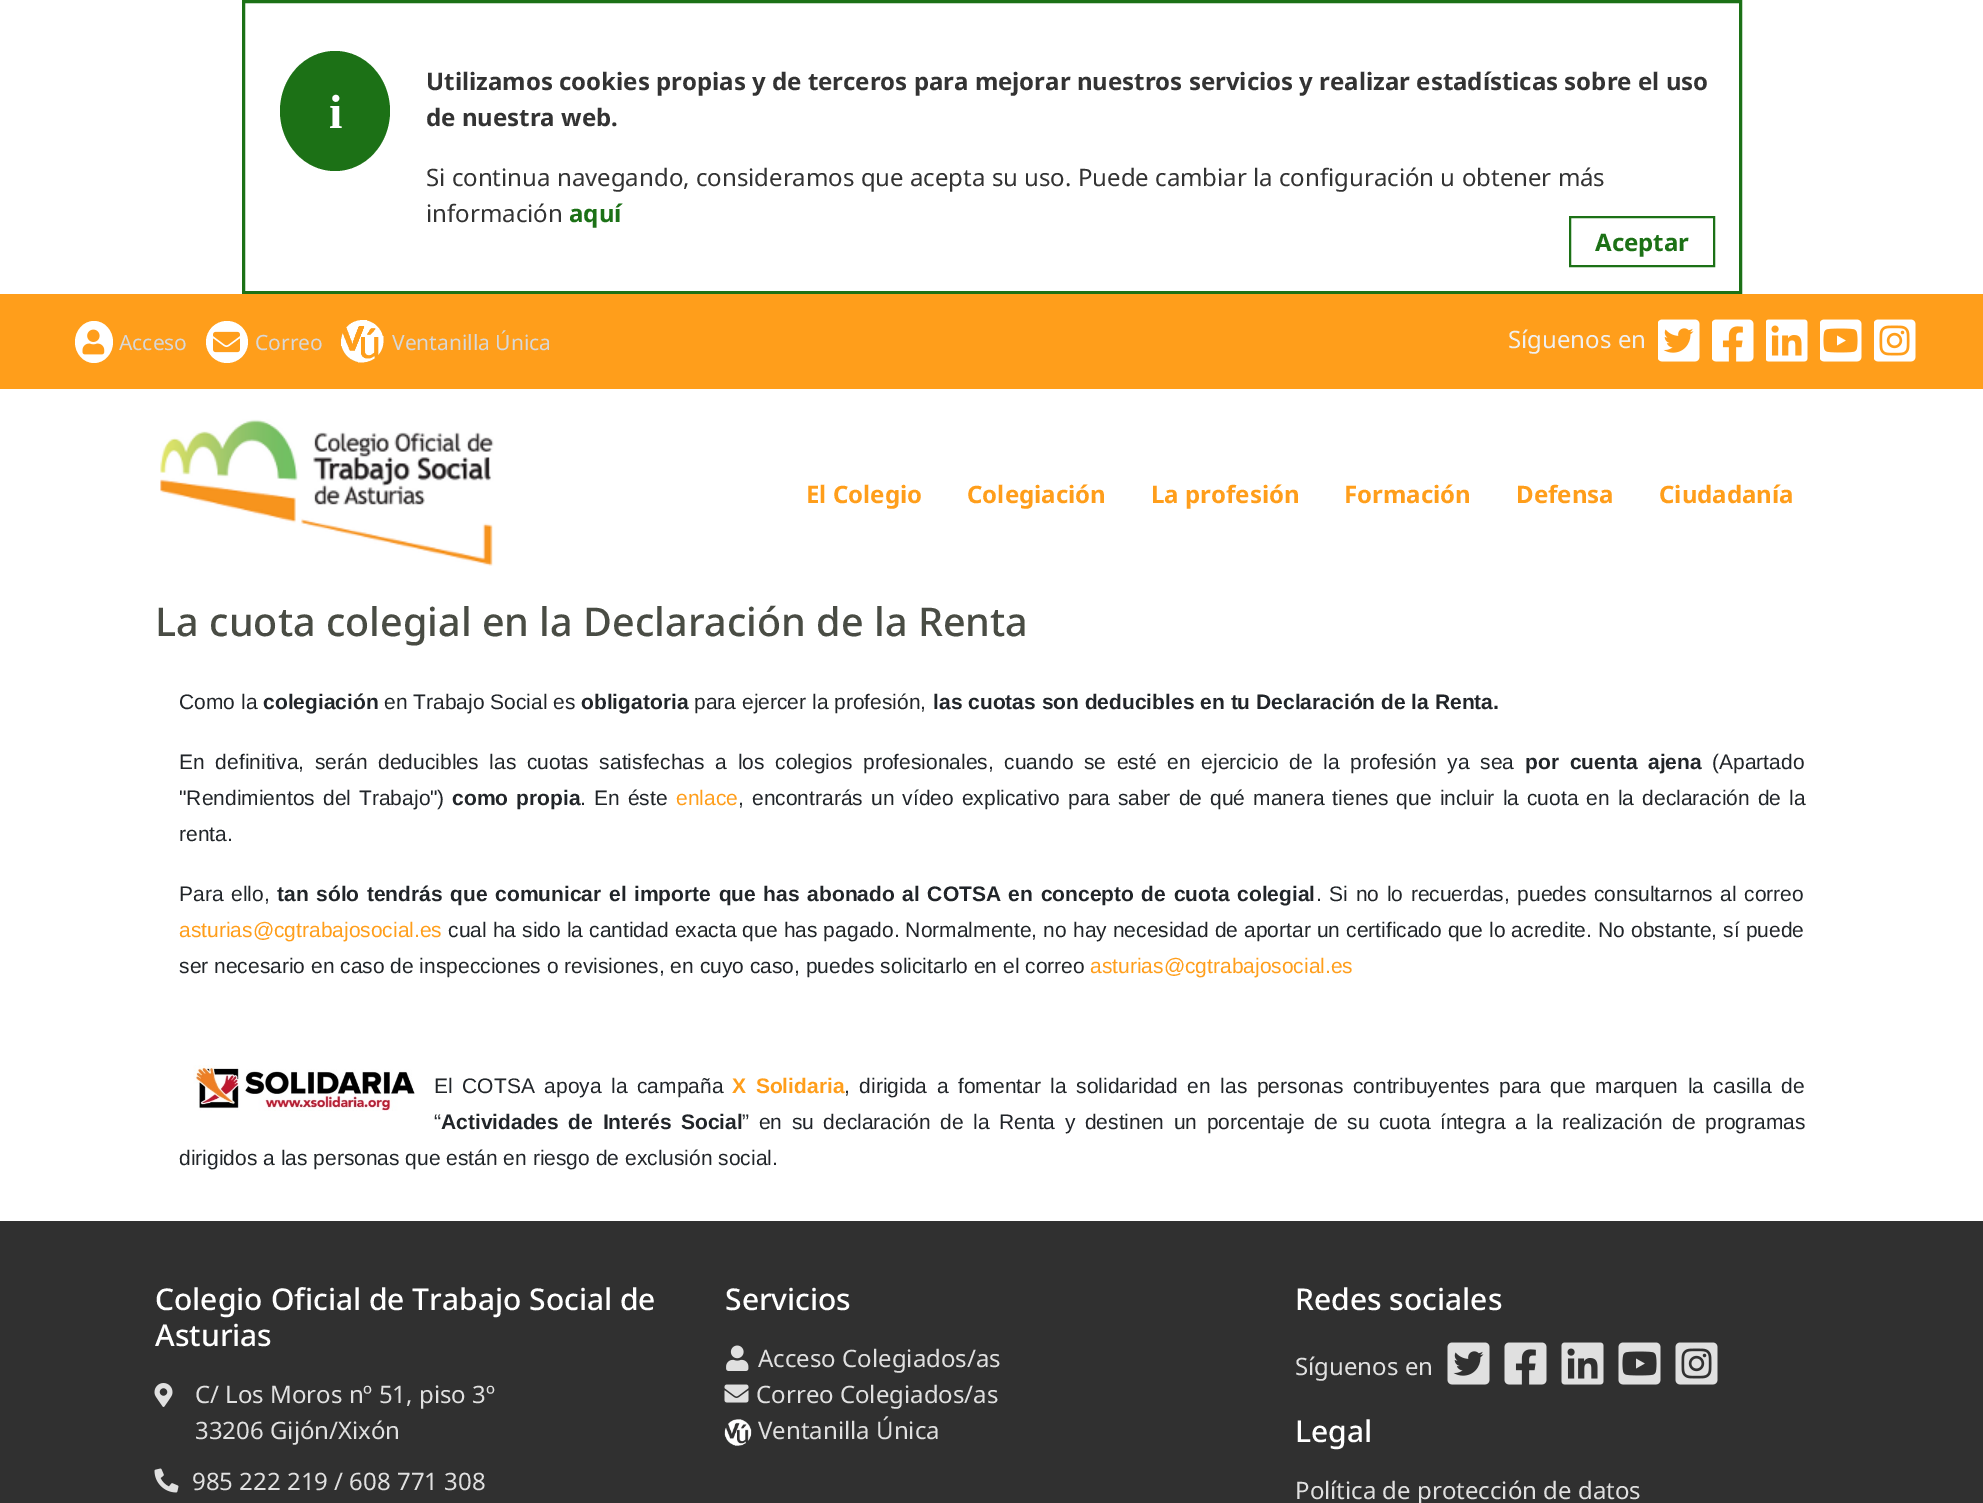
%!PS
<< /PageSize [1983 1503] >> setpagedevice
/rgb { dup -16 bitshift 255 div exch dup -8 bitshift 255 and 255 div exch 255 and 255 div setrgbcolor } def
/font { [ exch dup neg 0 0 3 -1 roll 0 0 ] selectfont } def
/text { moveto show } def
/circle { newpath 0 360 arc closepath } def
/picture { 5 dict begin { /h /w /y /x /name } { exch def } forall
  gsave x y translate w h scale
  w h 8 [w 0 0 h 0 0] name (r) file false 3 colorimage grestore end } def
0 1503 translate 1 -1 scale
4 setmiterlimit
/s1 { /LiberationSerif-Bold 48 font 16#FFFFFF rgb } def
/s2 { /NotoSans-Bold 24 font 16#333333 rgb } def
/s3 { /NotoSans-Regular 24 font 16#333333 rgb } def
/s4 { /NotoSans-Bold 24 font 16#1C7116 rgb } def
/s5 { /NotoSans-Regular 21 font 16#D8D8D8 rgb } def
/s6 { /NotoSans-Regular 24 font 16#F0F0F0 rgb } def
/s7 { /NotoSans-Bold 24 font 16#FF9E1B rgb } def
/s8 { /NotoSans-Medium 39.6 font 16#494C44 rgb } def
/s9 { /LiberationSans-Regular 21 font 16#212529 rgb } def
/s10 { /LiberationSans-Bold 21 font 16#212529 rgb } def
/s11 { /LiberationSans-Regular 21 font 16#FF9E1B rgb } def
/s12 { /NotoSans-Medium 30 font 16#FFFFFF rgb } def
/s13 { /NotoSans-Regular 24 font 16#E0E0E0 rgb } def
16#FFFFFF rgb
0 0 1983 1503 rectfill
16#1C7116 rgb
3 setlinewidth
243.5 1.5 1497 291 rectstroke
335 51 moveto 365.5 51 390 78 390 111 curveto 390 144 365.5 171 335 171 curveto 304.5 171 280 144 280 111 curveto 280 78 304.5 51 335 51 curveto closepath fill
s1
(i) 329 128 text
s2
(Utilizamos cookies propias y de terceros para mejorar nuestros servicios y realizar estadísticas sobre el uso) 426 90 text
(de nuestra web.) 426 126 text
s3
(Si continua navegando, consideramos que acepta su uso. Puede cambiar la configuración u obtener más) 426 186 text
(información) 426 222 text
s4
(aquí) 569 222 text
2 setlinewidth
1570 217 144 49 rectstroke
(Aceptar) 1595 251 text
16#FF9E1B rgb
0 294 1983 95 rectfill
16#FFFFFF rgb
94 321 moveto 104.5 321 113 330.5 113 342 curveto 113 353.5 104.5 363 94 363 curveto 83.5 363 75 353.5 75 342 curveto 75 330.5 83.5 321 94 321 curveto closepath fill
(pic1.raw) 82 329 23 26 picture
s5
(Acceso) 119 350 text
16#FFFFFF rgb
227 342 21 circle fill
(pic2.raw) 213 331 27 22 picture
s5
(Correo) 255 350 text
(pic3.raw) 341 320 43 43 picture
(Ventanilla Única) 392 350 text
s6
(Síguenos en) 1508 348 text
(pic4.raw) 1658 319 42 43 picture
(pic5.raw) 1712 319 42 43 picture
(pic6.raw) 1766 319 42 43 picture
(pic7.raw) 1820 319 42 43 picture
(pic8.raw) 1874 319 42 43 picture
(pic9.raw) 160 419 334 147 picture
s7
(El Colegio) 806 503 text
(Colegiación) 967 503 text
(La profesión) 1151 503 text
(Formación) 1344 503 text
(Defensa) 1516 503 text
(Ciudadanía) 1659 503 text
s8
(La cuota colegial en la Declaración de la Renta) 155 636 text
s9
(Como la) 179 709 text
s10
(colegiación) 263 709 text
s9
(en Trabajo Social es) 384 709 text
s10
(obligatoria) 581 709 text
s9
(para ejercer la profesión,) 694 709 text
s10
(las cuotas son deducibles en tu Declaración de la Renta.) 933 709 text
/LiberationSans-Regular 21 font
179 769 moveto 4.9 0 32 (En definitiva, serán deducibles las cuotas satisfechas a los colegios profesionales, cuando se esté en ejercicio de la profesión ya sea) widthshow
/LiberationSans-Bold 21 font
1525 769 moveto 4.9 0 32 (por cuenta ajena) widthshow
s9
(\(Apartado) 1712 769 text
179 805 moveto 2.25 0 32 ("Rendimientos del Trabajo") widthshow
(\)) 437 805 text
/LiberationSans-Bold 21 font
452 805 moveto 2.25 0 32 (como propia) widthshow
s9
(.) 580 805 text
594 805 moveto 2.25 0 32 (En éste) widthshow
s11
(enlace) 676 805 text
16#212529 rgb
738 805 moveto 2.25 0 32 (, encontrarás un vídeo explicativo para saber de qué manera tienes que incluir la cuota en la declaración de la) widthshow
(renta.) 179 841 text
179 901 moveto 1.75 0 32 (Para ello,) widthshow
/LiberationSans-Bold 21 font
277 901 moveto 1.75 0 32 (tan sólo tendrás que comunicar el importe que has abonado al COTSA en concepto de cuota colegial) widthshow
/LiberationSans-Regular 21 font
1316 901 moveto 1.75 0 32 (. Si no lo recuerdas, puedes consultarnos al correo) widthshow
s11
(asturias@cgtrabajosocial.es) 179 937 text
16#212529 rgb
448 937 moveto 0.25 0 32 (cual ha sido la cantidad exacta que has pagado. Normalmente, no hay necesidad de aportar un certificado que lo acredite. No obstante, sí puede) widthshow
(ser necesario en caso de inspecciones o revisiones, en cuyo caso, puedes solicitarlo en el correo) 179 973 text
s11
(asturias@cgtrabajosocial.es) 1090 973 text
(pic10.raw) 193 1065 222 46 picture
16#212529 rgb
434 1093 moveto 3.75 0 32 (El COTSA apoya la campaña) widthshow
/LiberationSans-Bold 21 font
16#FF9E1B rgb
732 1093 moveto 3.75 0 32 (X Solidaria) widthshow
/LiberationSans-Regular 21 font
16#212529 rgb
844 1093 moveto 3.75 0 32 (, dirigida a fomentar la solidaridad en las personas contribuyentes para que marquen la casilla de) widthshow
(“) 434 1129 text
/LiberationSans-Bold 21 font
441 1129 moveto 3.75 0 32 (Actividades de Interés Social) widthshow
/LiberationSans-Regular 21 font
742 1129 moveto 3.75 0 32 (” en su declaración de la Renta y destinen un porcentaje de su cuota íntegra a la realización de programas) widthshow
(dirigidos a las personas que están en riesgo de exclusión social.) 179 1165 text
16#303030 rgb
0 1221 1983 282 rectfill
s12
(Colegio Oficial de Trabajo Social de) 155 1310 text
(Asturias) 155 1346 text
(pic11.raw) 154 1383 19 24 picture
s13
(C/ Los Moros nº 51, piso 3º) 195 1403 text
(33206 Gijón/Xixón) 195 1439 text
(pic12.raw) 154 1468 25 25 picture
(985 222 219 / 608 771 308) 192 1490 text
s12
(Servicios) 725 1310 text
(pic13.raw) 726 1345 23 26 picture
s13
(Acceso Colegiados/as) 758 1367 text
(pic14.raw) 724 1384 25 19 picture
(Correo Colegiados/as) 756 1403 text
(pic15.raw) 724 1419 28 27 picture
(Ventanilla Única) 758 1439 text
s12
(Redes sociales) 1295 1310 text
s13
(Síguenos en) 1295 1375 text
(pic16.raw) 1447 1342 43 43 picture
(pic17.raw) 1504 1342 43 43 picture
(pic18.raw) 1561 1342 43 43 picture
(pic19.raw) 1618 1342 43 43 picture
(pic20.raw) 1675 1342 43 43 picture
s12
(Legal) 1295 1442 text
s13
(Política de protección de datos) 1295 1499 text
showpage
